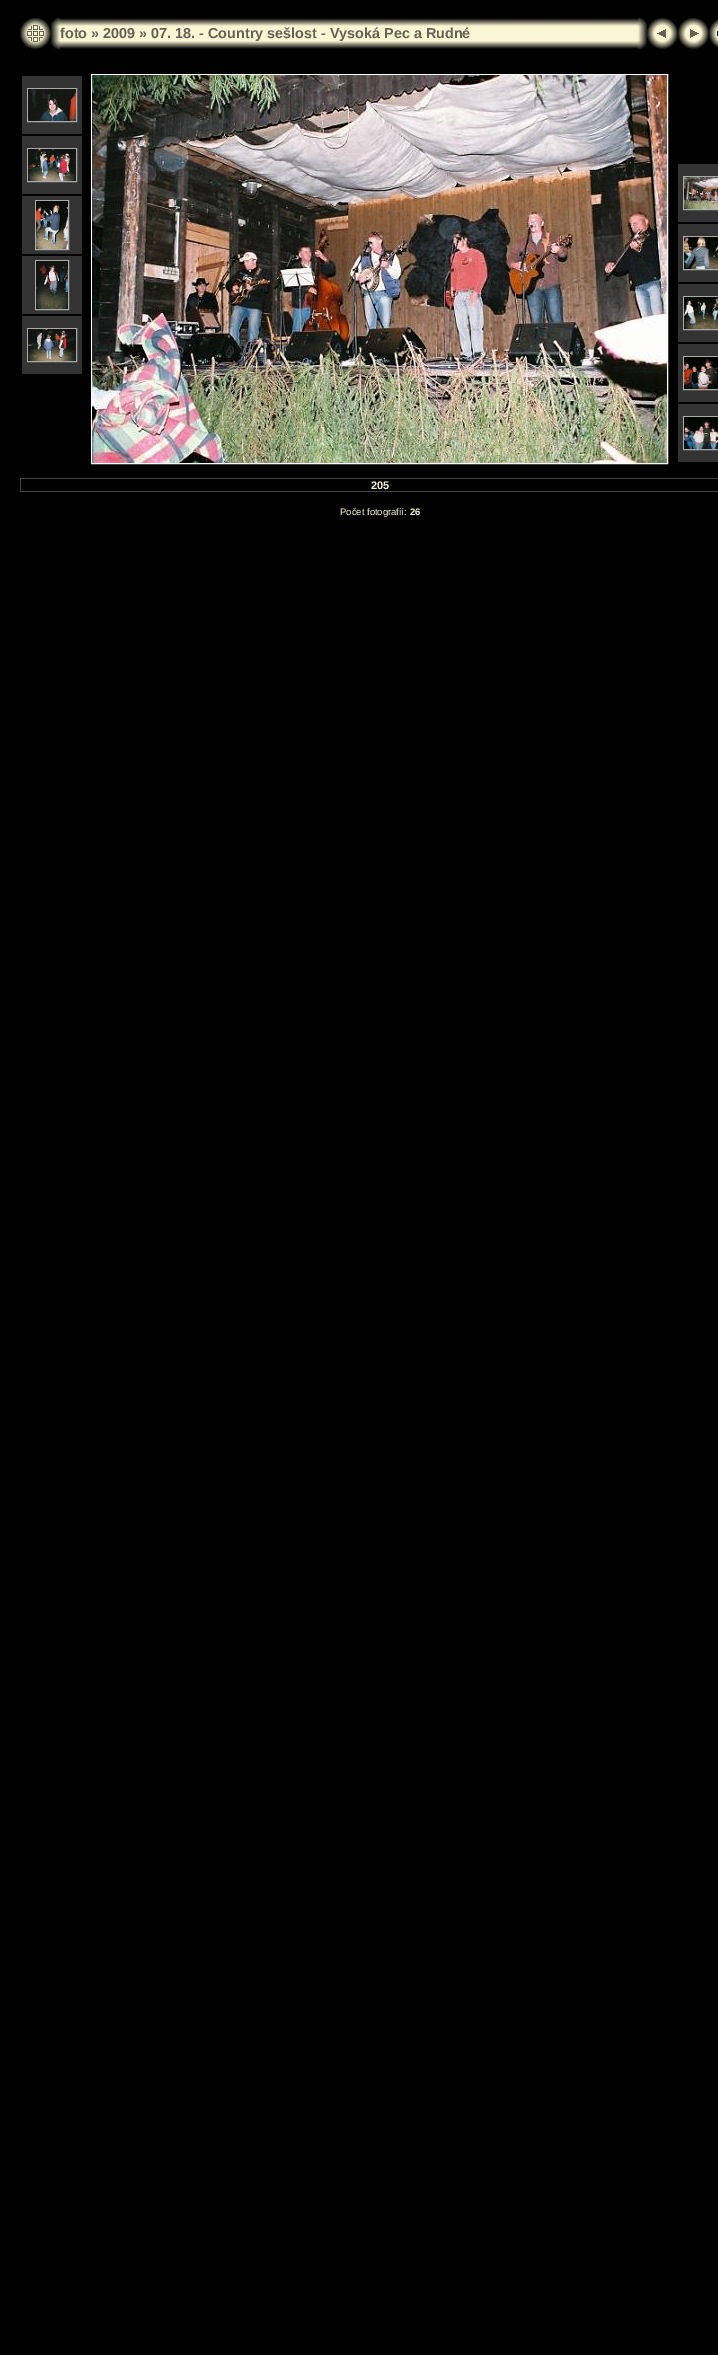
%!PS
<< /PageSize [718 2355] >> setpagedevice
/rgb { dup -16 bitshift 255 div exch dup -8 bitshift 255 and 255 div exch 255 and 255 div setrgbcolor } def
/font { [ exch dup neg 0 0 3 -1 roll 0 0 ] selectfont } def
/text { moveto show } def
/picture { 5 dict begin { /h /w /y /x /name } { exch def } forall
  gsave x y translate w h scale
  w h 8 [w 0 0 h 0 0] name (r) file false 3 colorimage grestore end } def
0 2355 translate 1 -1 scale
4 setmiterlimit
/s1 { /LiberationSans-Bold 14.4 font 16#656255 rgb } def
/s2 { /LiberationSans-Bold 11 font 16#FAF5D3 rgb } def
/s3 { /LiberationSans-Regular 9.5 font 16#FAF5D3 rgb } def
/s4 { /LiberationSans-Bold 9.5 font 16#FAF5D3 rgb } def
16#010101 rgb
0 0 718 2355 rectfill
(pic1.raw) 20 18 31 31 picture
(pic2.raw) 51 18 9 31 picture
(pic3.raw) 60 18 578 31 picture
s1
(foto » 2009 » 07. 18. - Country sešlost - Vysoká Pec a Rudné) 60 38 text
(pic4.raw) 638 18 9 31 picture
(pic5.raw) 647 18 31 31 picture
(pic6.raw) 678 18 31 31 picture
(pic7.raw) 709 19 9 30 picture
16#333333 rgb
22 76 60 58 rectfill
16#AAAAAA rgb
27.5 88.5 49 33 rectstroke
(pic8.raw) 28 89 48 32 picture
16#333333 rgb
22 136 60 58 rectfill
16#AAAAAA rgb
27.5 148.5 49 33 rectstroke
(pic9.raw) 28 149 48 32 picture
16#333333 rgb
22 196 60 58 rectfill
16#AAAAAA rgb
35.5 200.5 33 49 rectstroke
(pic10.raw) 36 201 32 48 picture
16#333333 rgb
22 256 60 58 rectfill
16#AAAAAA rgb
35.5 260.5 33 49 rectstroke
(pic11.raw) 36 261 32 48 picture
16#333333 rgb
22 316 60 58 rectfill
16#AAAAAA rgb
27.5 328.5 49 33 rectstroke
(pic12.raw) 28 329 48 32 picture
16#FFFFFF rgb
91.5 74.5 576 389 rectstroke
(pic13.raw) 92 75 575 388 picture
16#333333 rgb
678 164 40 58 rectfill
16#AAAAAA rgb
683.5 176.5 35 33 rectstroke
(pic14.raw) 684 177 34 32 picture
16#333333 rgb
678 224 40 58 rectfill
16#AAAAAA rgb
683.5 236.5 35 33 rectstroke
(pic15.raw) 684 237 34 32 picture
16#333333 rgb
678 284 40 58 rectfill
16#AAAAAA rgb
683.5 296.5 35 33 rectstroke
(pic16.raw) 684 297 34 32 picture
16#333333 rgb
678 344 40 58 rectfill
16#AAAAAA rgb
683.5 356.5 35 33 rectstroke
(pic17.raw) 684 357 34 32 picture
16#333333 rgb
678 404 40 58 rectfill
16#AAAAAA rgb
683.5 416.5 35 33 rectstroke
(pic18.raw) 684 417 34 32 picture
16#444444 rgb
20 478 698 1 rectfill
20 491 698 1 rectfill
20 478 1 14 rectfill
s2
(205) 371 489 text
s3
(Počet fotografií:) 340 515 text
s4
(26) 410 515 text
showpage
